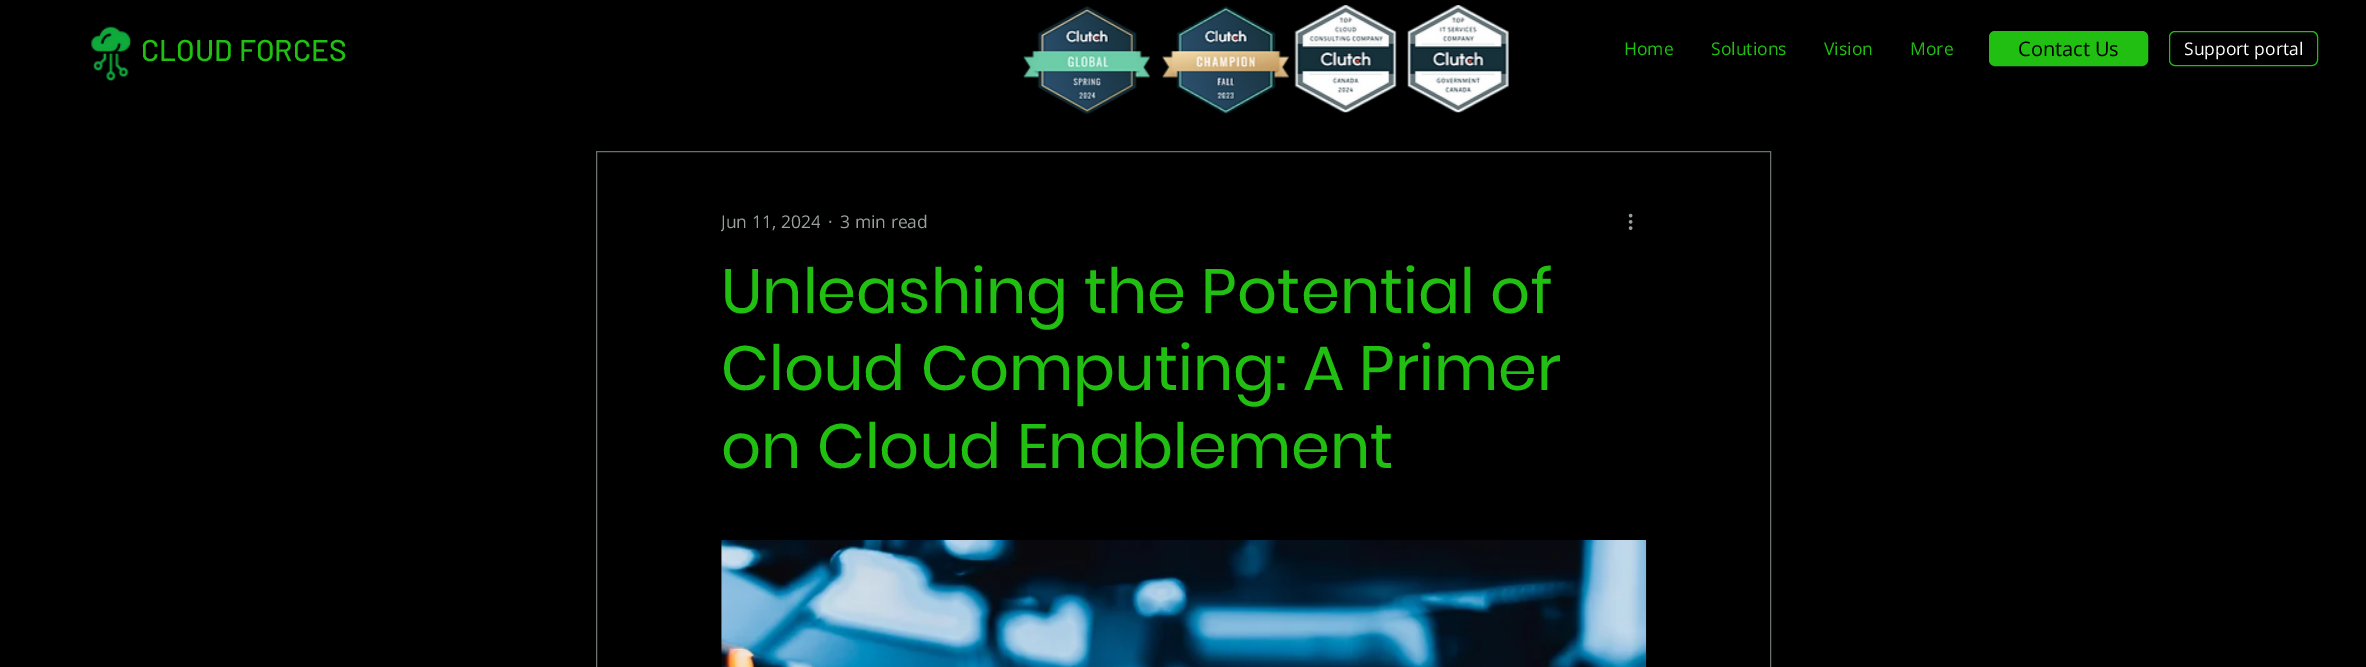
%!PS
<< /PageSize [2366 667] >> setpagedevice
/rgb { dup -16 bitshift 255 div exch dup -8 bitshift 255 and 255 div exch 255 and 255 div setrgbcolor } def
/font { [ exch dup neg 0 0 3 -1 roll 0 0 ] selectfont } def
/text { moveto show } def
/roundrect { 5 dict begin { /r /h /w /y /x } { exch def } forall
  x r add y moveto x w add y 2 copy h add r arct x w add y h add x 1 index r arct
  x y h add x y r arct x y 2 copy exch w add exch r arct closepath end } def
/picture { 5 dict begin { /h /w /y /x /name } { exch def } forall
  gsave x y translate w h scale
  w h 8 [w 0 0 h 0 0] name (r) file false 3 colorimage grestore end } def
0 667 translate 1 -1 scale
4 setmiterlimit
/s1 { /Barlow-Medium 30 font 16#20BF11 rgb } def
/s2 { /OpenSans-Regular 17.5 font 16#20BF11 rgb } def
/s3 { /OpenSans-Regular 20 font 16#000000 rgb } def
/s4 { /OpenSans-Regular 17.5 font 16#FFFFFF rgb } def
/s5 { /OpenSans-Regular 17.5 font 16#99A19D rgb } def
/s6 { /Poppins-Regular 62.5 font 16#20BF11 rgb } def
16#000000 rgb
0 0 2366 667 rectfill
(pic1.raw) 91 26 41 56 picture
s1
(CLOUD FORCES) 141 61 text
(pic2.raw) 1023 6 127 108 picture
(pic3.raw) 1162 6 127 108 picture
(pic4.raw) 1294 5 103 108 picture
(pic5.raw) 1407 5 102 108 picture
s2
(Home) 1624 55 text
(Solutions) 1711 55 text
(Vision) 1824 55 text
(More) 1910 55 text
1989.5 31.5 158 34 5.5 roundrect gsave fill grestore
stroke
s3
(Contact Us) 2018 56 text
16#20BF11 rgb
2169.5 31.5 148 34 5.5 roundrect stroke
s4
(Support portal) 2184 55 text
16#6A726E rgb
596.5 151.5 1174 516 rectstroke
gsave
721 208 99 26 rectclip
s5
(Jun 11, 2024) 721 228 text
grestore
s5
(·) 828 228 text
(3 min read) 840 228 text
(pic6.raw) 1628 213 5 17 picture
s6
(Unleashing the Potential of) 721 313 text
(Cloud Computing: A Primer) 721 390 text
(on Cloud Enablement) 721 468 text
(pic7.raw) 721 540 926 127 picture
showpage
